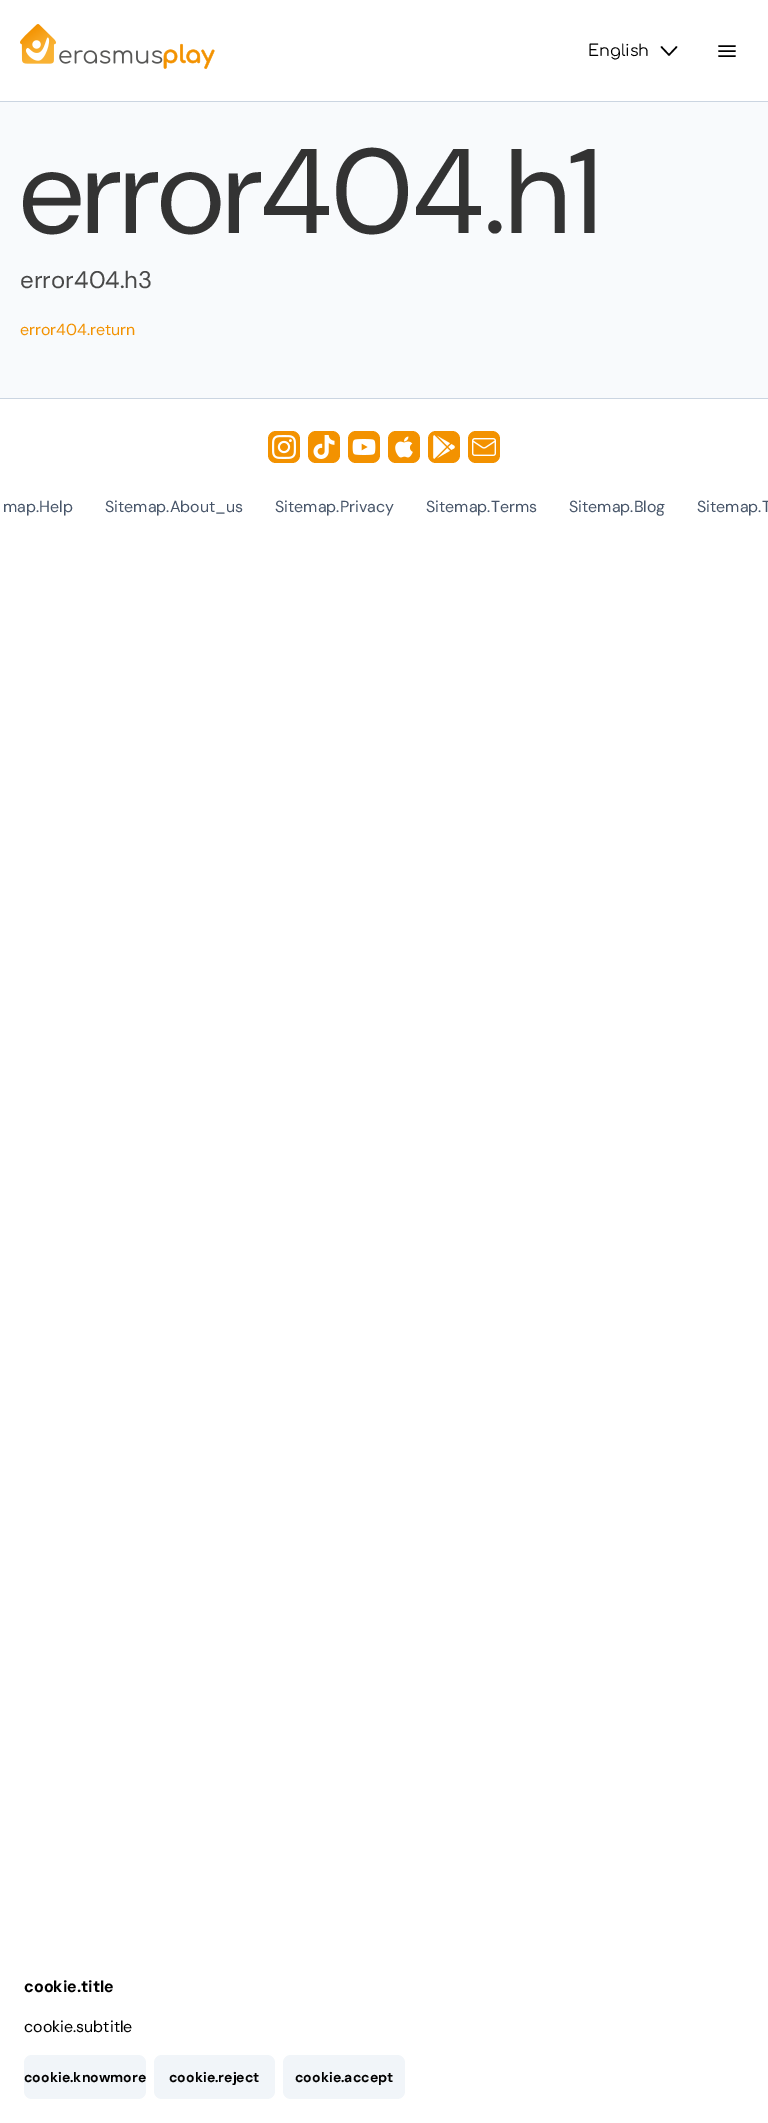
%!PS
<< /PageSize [768 2123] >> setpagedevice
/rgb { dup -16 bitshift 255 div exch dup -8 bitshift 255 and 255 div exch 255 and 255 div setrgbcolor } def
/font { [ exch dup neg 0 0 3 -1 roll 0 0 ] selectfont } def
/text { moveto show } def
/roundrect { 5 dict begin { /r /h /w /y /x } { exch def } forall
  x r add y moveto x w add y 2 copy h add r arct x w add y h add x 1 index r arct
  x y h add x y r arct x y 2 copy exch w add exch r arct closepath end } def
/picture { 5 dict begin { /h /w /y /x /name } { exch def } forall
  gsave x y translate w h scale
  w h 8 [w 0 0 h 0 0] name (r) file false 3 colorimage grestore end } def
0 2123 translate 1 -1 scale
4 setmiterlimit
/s1 { /Comfortaa-Regular 16 font 16#000000 rgb } def
/s2 { /DMSans-Regular 120 font 16#333333 rgb } def
/s3 { /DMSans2-Regular 24 font 16#484848 rgb } def
/s4 { /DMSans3-Regular 16 font 16#F39200 rgb } def
/s5 { /DMSans3-Regular 16 font 16#475569 rgb } def
/s6 { /DMSans-Bold 16 font 16#000000 rgb } def
/s7 { /DMSans3-Regular 16 font 16#000000 rgb } def
/s8 { /DMSans2-Bold 14 font 16#000000 rgb } def
16#FFFFFF rgb
0 0 768 2123 rectfill
(pic1.raw) 20 24 195 45 picture
s1
(English) 588 56 text
1.5 setlinewidth
1 setlinecap
1 setlinejoin
676.5 47 moveto 669 55 lineto 661.5 47 lineto stroke
719 46 moveto 735 46 lineto 719 51 moveto 735 51 lineto 719 56 moveto 735 56 lineto stroke
16#CBD5E1 rgb
0 101 768 1 rectfill
16#F8FAFC rgb
0 102 768 296 rectfill
s2
(error404.h1) 20 233 text
s3
(error404.h3) 20 288 text
s4
(error404.return) 20 335 text
16#CBD5E1 rgb
0 398 768 1 rectfill
16#F39200 rgb
268 431 32 32 8 roundrect fill
(pic2.raw) 272 435 24 24 picture
308 431 32 32 8 roundrect fill
(pic3.raw) 313 435 22 24 picture
348 431 32 32 8 roundrect fill
(pic4.raw) 352 439 24 16 picture
388 431 32 32 8 roundrect fill
(pic5.raw) 395 436 18 22 picture
428 431 32 32 8 roundrect fill
(pic6.raw) 433 435 22 24 picture
468 431 32 32 8 roundrect fill
(pic7.raw) 472 438 24 18 picture
s5
(map.Help) 3 512 text
(Sitemap.About_us) 105 512 text
(Sitemap.Privacy) 275 512 text
(Sitemap.Terms) 426 512 text
(Sitemap.Blog) 569 512 text
(Sitemap.T) 697 512 text
s6
(cookie.title) 24 1992 text
s7
(cookie.subtitle) 24 2032 text
16#F1F5F9 rgb
24 2055 122 44 8 roundrect fill
s8
(cookie.knowmore) 24 2082 text
16#F1F5F9 rgb
154 2055 121 44 8 roundrect fill
s8
(cookie.reject) 169 2082 text
16#F1F5F9 rgb
283 2055 122 44 8 roundrect fill
s8
(cookie.accept) 295 2082 text
showpage
